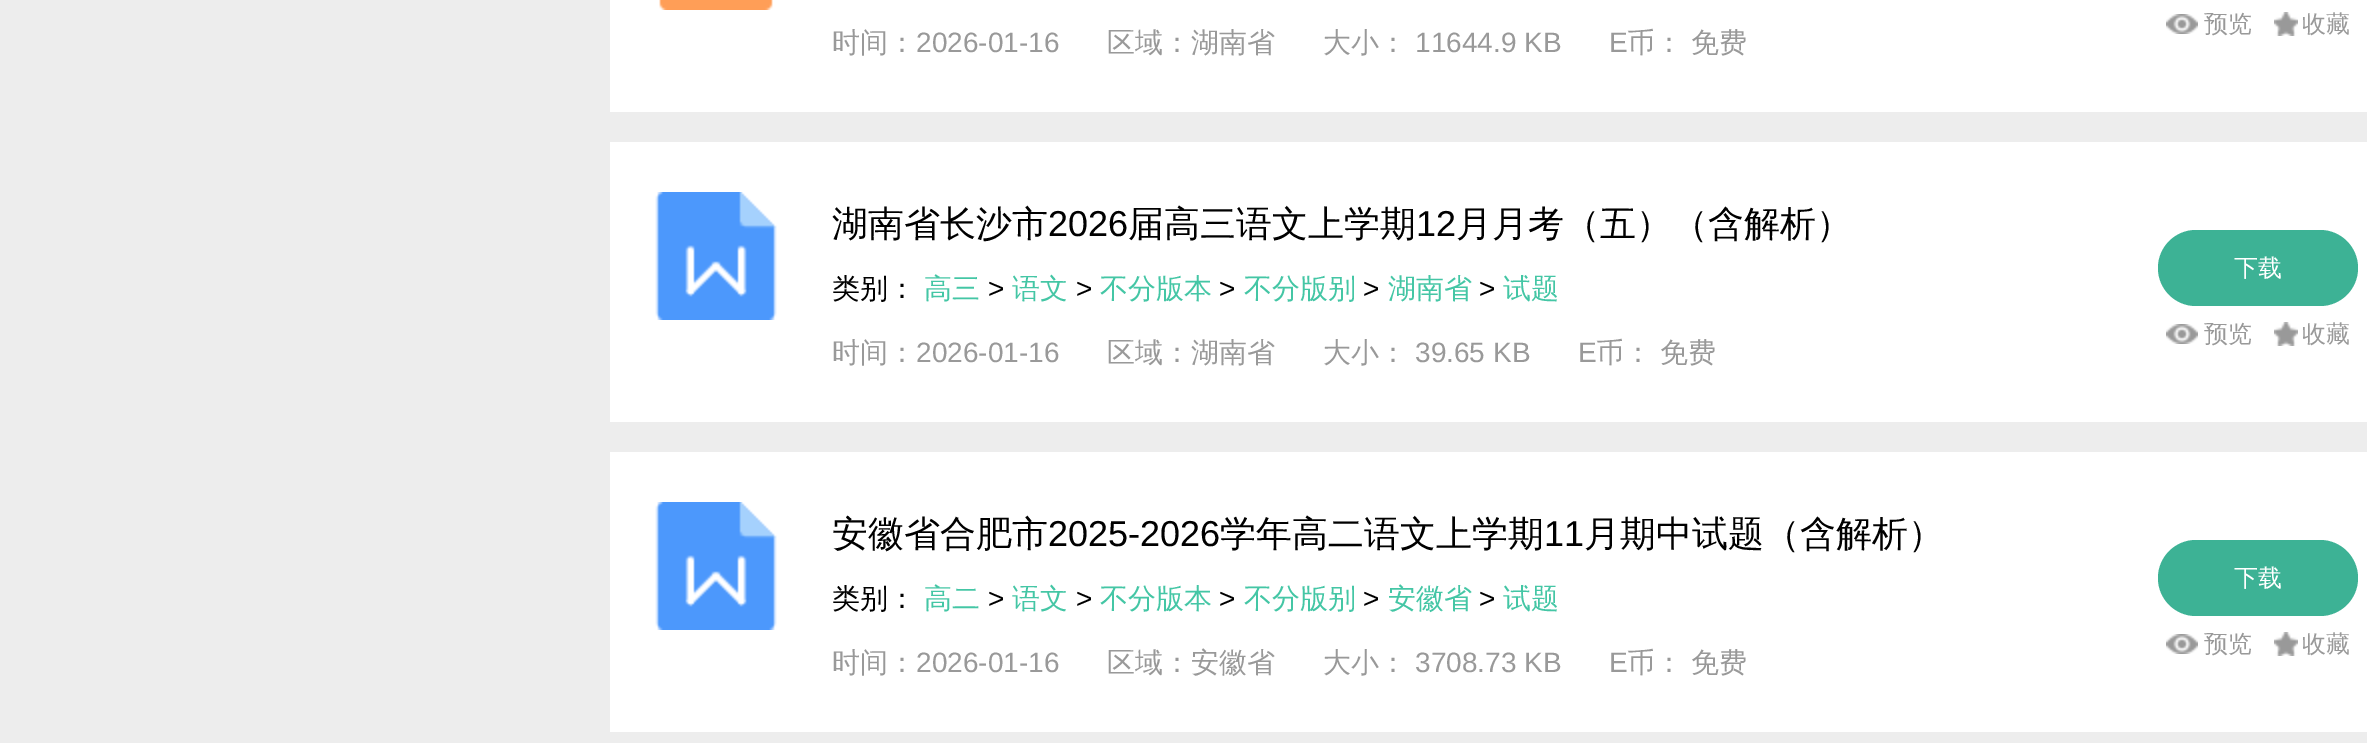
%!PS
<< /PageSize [2367 743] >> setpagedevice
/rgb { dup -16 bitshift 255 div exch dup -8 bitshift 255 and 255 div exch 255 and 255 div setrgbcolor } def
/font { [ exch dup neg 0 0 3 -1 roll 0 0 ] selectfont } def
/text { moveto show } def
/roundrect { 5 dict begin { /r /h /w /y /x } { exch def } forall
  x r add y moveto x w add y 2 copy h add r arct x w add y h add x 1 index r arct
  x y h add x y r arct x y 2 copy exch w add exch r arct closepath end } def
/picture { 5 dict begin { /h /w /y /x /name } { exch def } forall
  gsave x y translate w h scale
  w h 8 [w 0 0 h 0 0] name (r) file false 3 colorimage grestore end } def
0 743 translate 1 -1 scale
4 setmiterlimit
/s1 { /WenQuanYiZenHei-Medium 24 font 16#999999 rgb } def
/s2 { /WenQuanYiZenHei-Medium 28 font 16#999999 rgb } def
/s3 { /LiberationSans-Regular 28 font 16#999999 rgb } def
/s4 { /WenQuanYiZenHei-Medium 36 font 16#000000 rgb } def
/s5 { /LiberationSans-Regular 36 font 16#000000 rgb } def
/s6 { /WenQuanYiZenHei-Medium 28 font 16#000000 rgb } def
/s7 { /WenQuanYiZenHei-Medium 28 font 16#44C6A5 rgb } def
/s8 { /LiberationSans-Regular 28 font 16#000000 rgb } def
/s9 { /WenQuanYiZenHei-Medium 24 font 16#FFFFFF rgb } def
16#EDEDED rgb
0 0 2367 743 rectfill
16#FFFFFF rgb
610 0 1757 112 rectfill
(pic1.raw) 659 0 114 10 picture
(pic2.raw) 2166 14 32 20 picture
s1
(预览) 2204 32 text
(pic3.raw) 2274 12 24 24 picture
(收藏) 2302 32 text
s2
(时间：) 832 52 text
s3
(2026-01-16) 916 52 text
s2
(区域：湖南省) 1107 52 text
(大小：) 1323 52 text
s3
(11644.9 KB) 1415 52 text
(E) 1609 52 text
s2
(币：) 1627 52 text
(免费) 1691 52 text
16#FFFFFF rgb
610 142 1757 280 rectfill
(pic4.raw) 655 192 122 128 picture
s4
(湖南省长沙市) 832 236 text
s5
(2026) 1048 236 text
s4
(届高三语文上学期) 1128 236 text
s5
(12) 1416 236 text
s4
(月月考（五）（含解析）) 1456 236 text
s6
(类别：) 832 298 text
s7
(高三) 924 298 text
s8
(>) 988 298 text
s7
(语文) 1012 298 text
s8
(>) 1076 298 text
s7
(不分版本) 1100 298 text
s8
(>) 1219 298 text
s7
(不分版别) 1244 298 text
s8
(>) 1363 298 text
s7
(湖南省) 1388 298 text
s8
(>) 1479 298 text
s7
(试题) 1503 298 text
16#3DB295 rgb
2158 230 200 76 38 roundrect fill
s9
(下载) 2234 276 text
(pic2.raw) 2166 324 32 20 picture
s1
(预览) 2204 342 text
(pic3.raw) 2274 322 24 24 picture
(收藏) 2302 342 text
s2
(时间：) 832 362 text
s3
(2026-01-16) 916 362 text
s2
(区域：湖南省) 1107 362 text
(大小：) 1323 362 text
s3
(39.65 KB) 1415 362 text
(E) 1578 362 text
s2
(币：) 1596 362 text
(免费) 1660 362 text
16#FFFFFF rgb
610 452 1757 280 rectfill
(pic4.raw) 655 502 122 128 picture
s4
(安徽省合肥市) 832 546 text
s5
(2025-2026) 1048 546 text
s4
(学年高二语文上学期) 1220 546 text
s5
(11) 1544 546 text
s4
(月期中试题（含解析）) 1584 546 text
s6
(类别：) 832 608 text
s7
(高二) 924 608 text
s8
(>) 988 608 text
s7
(语文) 1012 608 text
s8
(>) 1076 608 text
s7
(不分版本) 1100 608 text
s8
(>) 1219 608 text
s7
(不分版别) 1244 608 text
s8
(>) 1363 608 text
s7
(安徽省) 1388 608 text
s8
(>) 1479 608 text
s7
(试题) 1503 608 text
16#3DB295 rgb
2158 540 200 76 38 roundrect fill
s9
(下载) 2234 586 text
(pic2.raw) 2166 634 32 20 picture
s1
(预览) 2204 652 text
(pic3.raw) 2274 632 24 24 picture
(收藏) 2302 652 text
s2
(时间：) 832 672 text
s3
(2026-01-16) 916 672 text
s2
(区域：安徽省) 1107 672 text
(大小：) 1323 672 text
s3
(3708.73 KB) 1415 672 text
(E) 1609 672 text
s2
(币：) 1627 672 text
(免费) 1691 672 text
showpage
